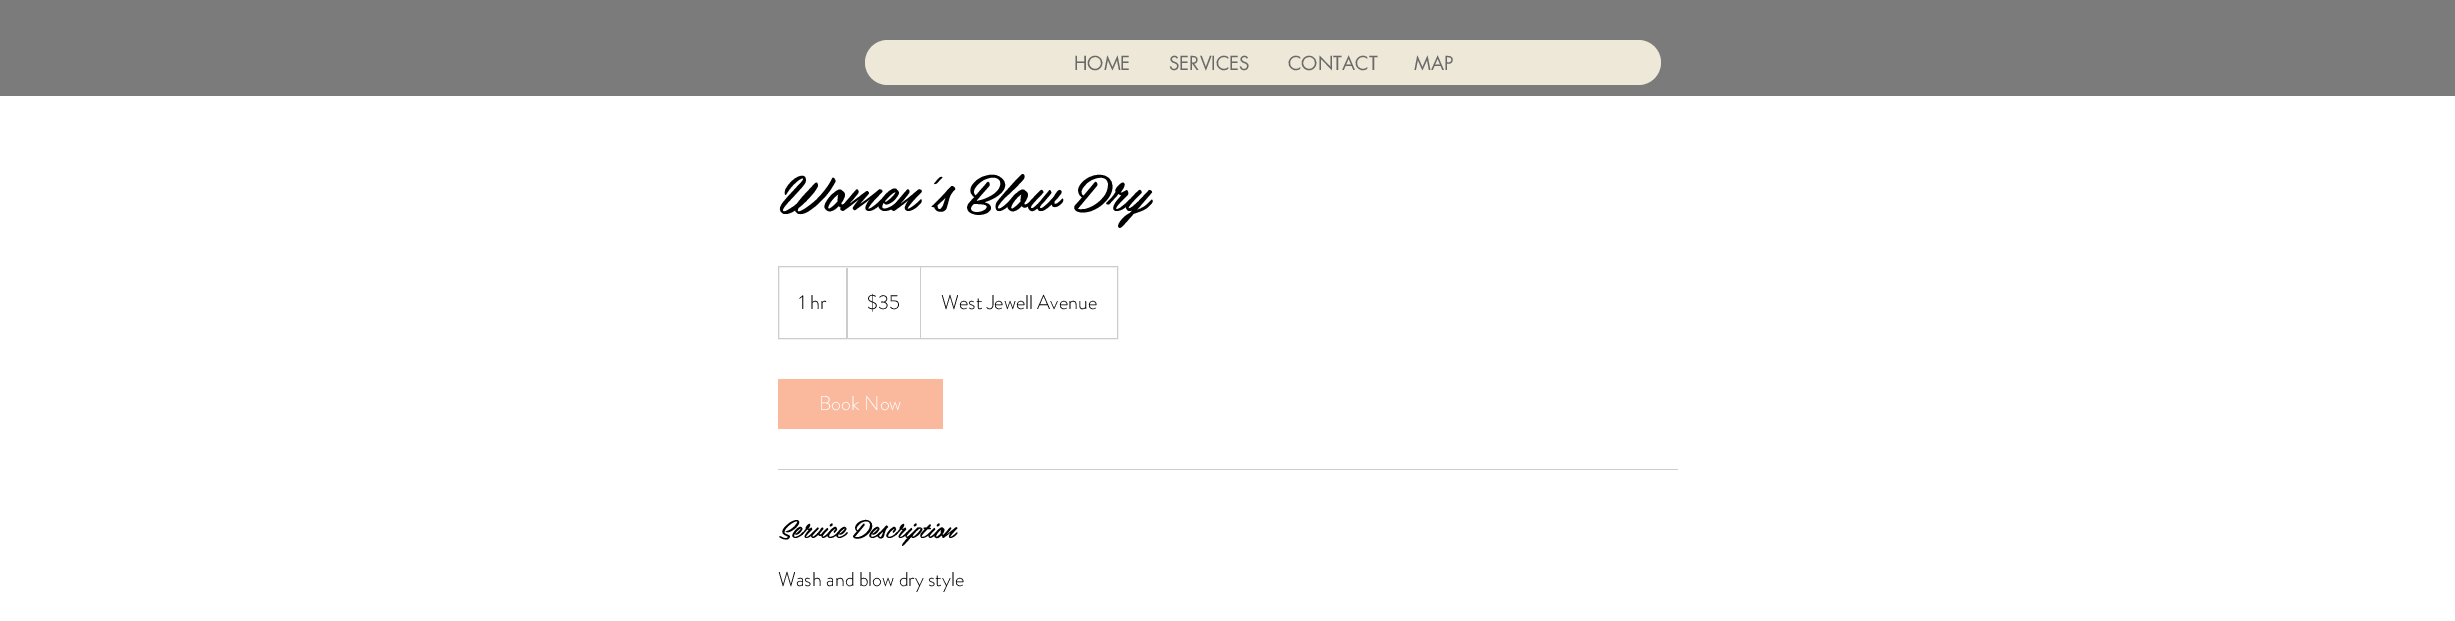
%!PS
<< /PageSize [2455 621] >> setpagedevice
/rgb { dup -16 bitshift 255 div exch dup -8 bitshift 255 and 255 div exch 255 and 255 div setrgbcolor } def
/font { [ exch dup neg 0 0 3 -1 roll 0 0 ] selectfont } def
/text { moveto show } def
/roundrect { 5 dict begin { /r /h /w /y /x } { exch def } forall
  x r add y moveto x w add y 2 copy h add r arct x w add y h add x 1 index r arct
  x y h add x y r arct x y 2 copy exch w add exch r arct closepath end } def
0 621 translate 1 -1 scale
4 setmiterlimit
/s1 { /futura-Regular 18.75 font 16#696969 rgb } def
/s2 { /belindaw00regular-Italic 50 font 16#000000 rgb } def
/s3 { /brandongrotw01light-Light 20 font 16#000000 rgb } def
/s4 { /brandongrotw01light-Light 20 font 16#FFFFFF rgb } def
/s5 { /belindaw00regular-Italic 25 font 16#000000 rgb } def
16#FFFFFF rgb
0 0 2455 621 rectfill
16#7B7B7B rgb
0 0 2455 96 rectfill
16#EEE8D8 rgb
865 40 796 45 22.5 roundrect fill
s1
(HOME) 1074 70 text
(SERVICES) 1169 70 text
(CONTACT) 1288 70 text
(MAP) 1414 70 text
s2
(Women's Blow Dry) 778 211 text
16#CCCCCC rgb
778.5 266.5 339 72 rectstroke
s3
(1 hr) 799 309 text
gsave
779 268 337 70 rectclip
16#CCCCCC rgb
846 338 moveto 846 266 lineto 848 268 lineto 848 338 lineto closepath fill
grestore
($35) 867 309 text
16#CCCCCC rgb
920 338 moveto 920 266 lineto 921 268 lineto 921 338 lineto closepath fill
s3
(West Jewell Avenue) 941 309 text
16#FAB89D rgb
778 379 165 50 rectfill
s4
(Book Now) 819 410 text
16#CCCCCC rgb
778 469 900 1 rectfill
s5
(Service Description) 778 538 text
s3
(Wash and blow dry style) 778 586 text
showpage
